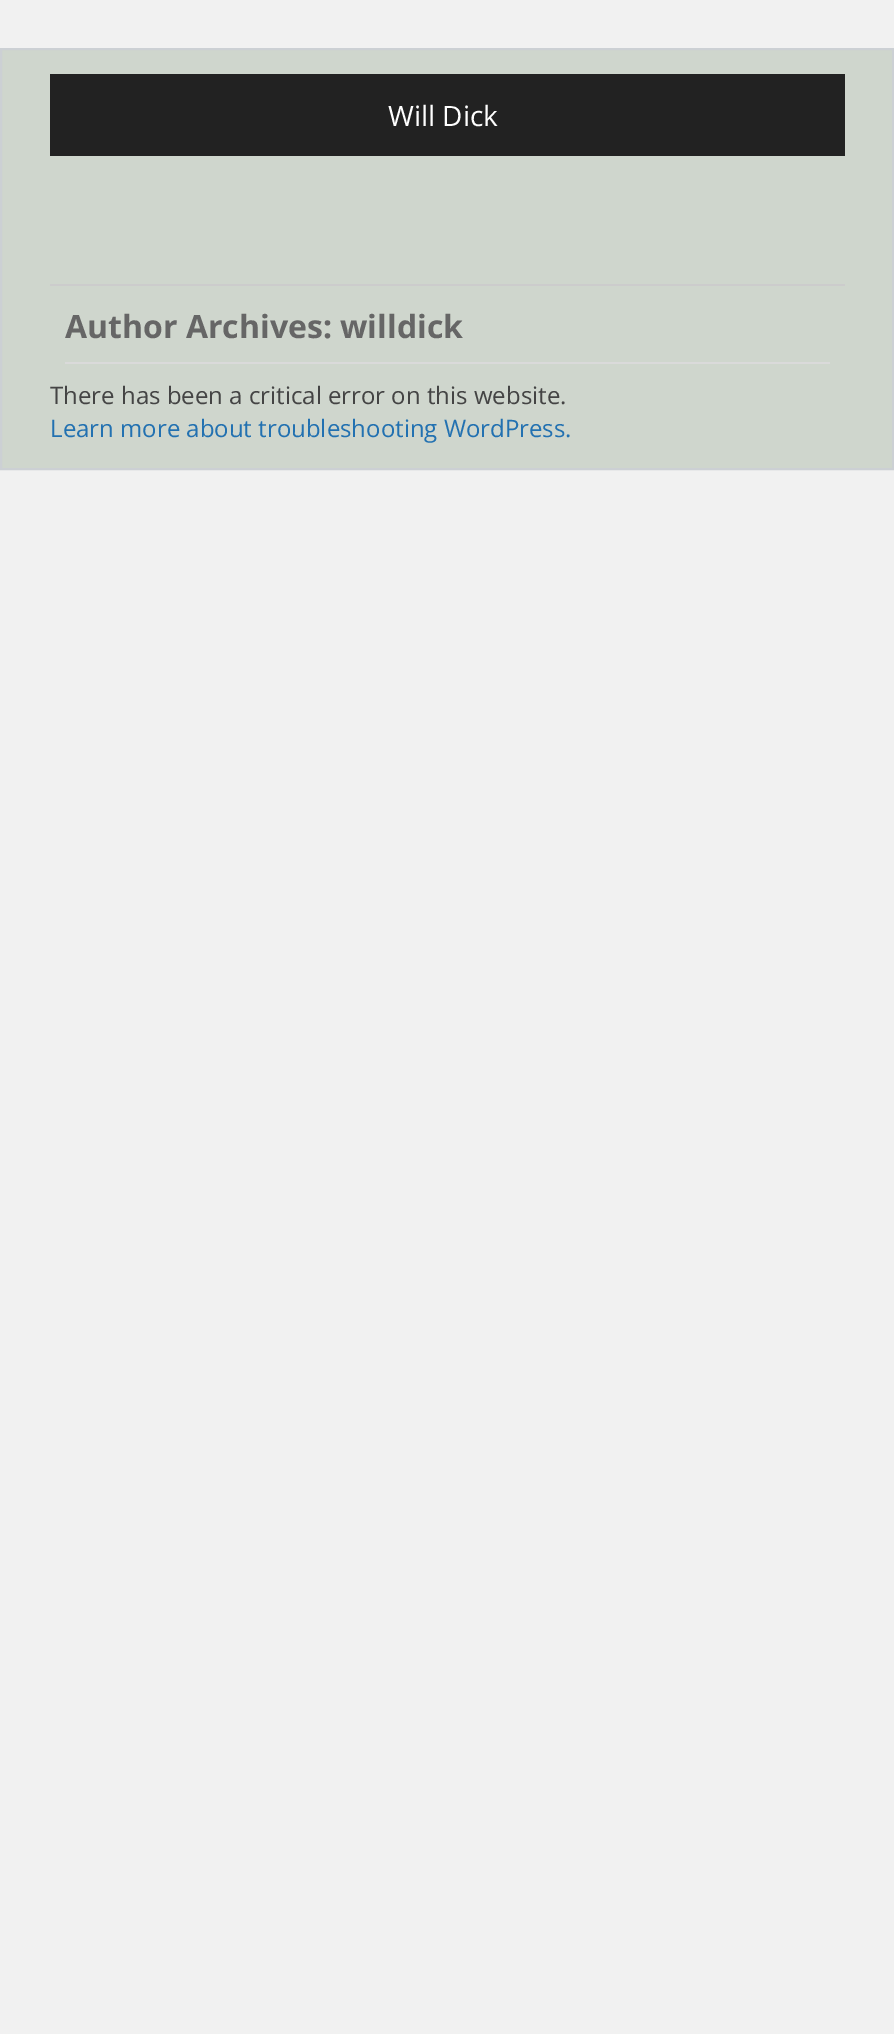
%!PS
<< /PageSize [894 2034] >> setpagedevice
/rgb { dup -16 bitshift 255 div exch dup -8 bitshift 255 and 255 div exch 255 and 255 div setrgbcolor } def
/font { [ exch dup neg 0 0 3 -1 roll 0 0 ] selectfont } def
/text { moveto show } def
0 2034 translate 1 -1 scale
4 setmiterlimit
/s1 { /OpenSans-Regular 28 font 16#FFFFFF rgb } def
/s2 { /OpenSans-Bold 32 font 16#666666 rgb } def
/s3 { /OpenSans-Regular 24 font 16#444444 rgb } def
/s4 { /OpenSans-Regular 24 font 16#2271B1 rgb } def
16#F1F1F1 rgb
0 0 894 2034 rectfill
16#CFD6CD rgb
1 49 moveto 893 49 lineto 893 469 lineto 1 469 lineto closepath gsave fill grestore
16#CCD0D4 rgb
2 setlinewidth
stroke
16#222222 rgb
50 74 795 82 rectfill
s1
(Will Dick) 388 126 text
16#CCCCCC rgb
50 284 795 2 rectfill
16#DADADA rgb
65 362 765 2 rectfill
s2
(Author Archives: willdick) 65 338 text
s3
(There has been a critical error on this website.) 50 404 text
s4
(Learn more about troubleshooting WordPress.) 50 437 text
showpage
